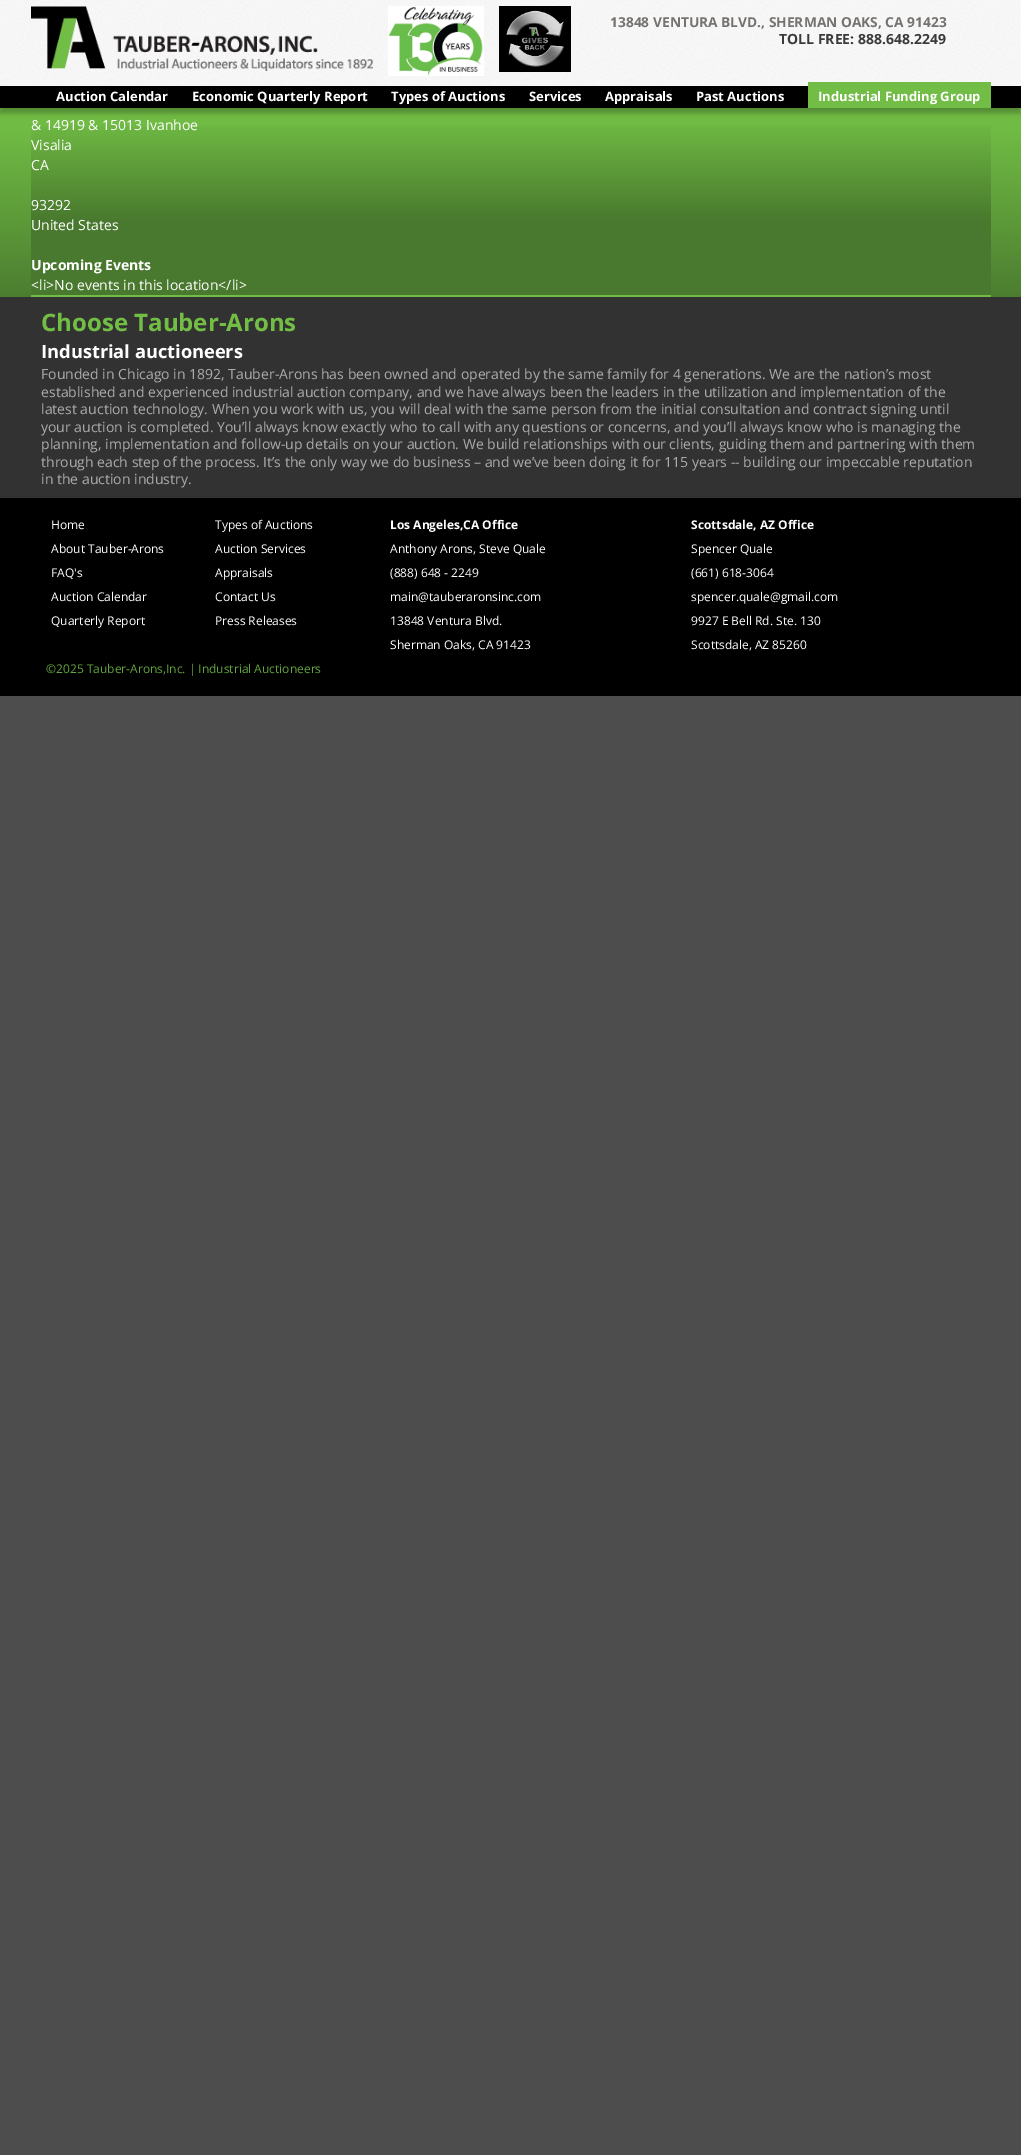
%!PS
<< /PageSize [1021 2155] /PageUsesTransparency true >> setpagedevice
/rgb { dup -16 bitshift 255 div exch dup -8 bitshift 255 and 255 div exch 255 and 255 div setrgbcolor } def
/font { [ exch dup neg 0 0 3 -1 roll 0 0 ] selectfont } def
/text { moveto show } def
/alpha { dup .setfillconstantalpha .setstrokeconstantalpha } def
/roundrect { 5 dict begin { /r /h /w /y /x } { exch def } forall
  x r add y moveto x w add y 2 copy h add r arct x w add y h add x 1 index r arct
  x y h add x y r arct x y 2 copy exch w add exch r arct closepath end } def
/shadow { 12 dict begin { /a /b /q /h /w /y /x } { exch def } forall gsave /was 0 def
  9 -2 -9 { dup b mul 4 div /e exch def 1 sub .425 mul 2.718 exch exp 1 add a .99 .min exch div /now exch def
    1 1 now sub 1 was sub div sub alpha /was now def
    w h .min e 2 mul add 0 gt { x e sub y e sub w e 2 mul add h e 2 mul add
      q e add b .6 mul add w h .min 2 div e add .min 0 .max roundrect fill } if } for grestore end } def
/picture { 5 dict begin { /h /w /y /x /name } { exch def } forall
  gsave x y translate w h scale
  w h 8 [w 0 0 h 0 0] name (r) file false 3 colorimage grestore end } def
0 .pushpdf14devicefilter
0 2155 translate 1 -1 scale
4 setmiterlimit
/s1 { /OpenSans-Bold 13.75 font 16#75726F rgb } def
/s2 { /OpenSans-Bold 14 font 16#3A3A39 rgb } def
/s3 { /OpenSans-Bold 13 font 16#FFFFFF rgb } def
/s4 { /OpenSans-Regular 14 font 16#FFFFFF rgb } def
/s5 { /OpenSans-Bold 14 font 16#FFFFFF rgb } def
/s6 { /OpenSans-Bold 24 font 16#72BE45 rgb } def
/s7 { /OpenSans-Bold 18.25 font 16#FFFFFF rgb } def
/s8 { /OpenSans-Regular 14 font 16#ABABAB rgb } def
/s9 { /OpenSans-Regular 12 font 16#FFFFFF rgb } def
/s10 { /OpenSans-Bold 12 font 16#FFFFFF rgb } def
/s11 { /OpenSans-Regular 12 font 16#62A33C rgb } def
16#4E4D4D rgb
0 0 1021 2155 rectfill
(pic1.raw) 0 108 1021 189 picture
16#020202 rgb
0 5 1021 108 0 2.5 0.25 shadow
16#F8F8F8 rgb
1020 0 1 86 rectfill
(pic2.raw) 0 0 1020 86 picture
(pic3.raw) 31 6 342 65 picture
(pic4.raw) 388 6 96 70 picture
(pic5.raw) 499 6 72 66 picture
s1
(13848 VENTURA BLVD., SHERMAN OAKS, CA 91423) 610 27 text
s2
(TOLL FREE: 888.648.2249) 779 44 text
16#000000 rgb
0 86 1021 22 rectfill
s3
(Auction Calendar) 56 101 text
(Economic Quarterly Report) 192 101 text
(Types of Auctions) 391 101 text
(Services) 529 101 text
(Appraisals) 605 101 text
(Past Auctions) 696 101 text
16#71BD45 rgb
808 82 183 26 rectfill
s3
(Industrial Funding Group) 818 101 text
gsave 31 125 moveto 991 125 lineto 991 295 lineto 31 295 lineto closepath clip newpath
<< /ShadingType 2 /ColorSpace /DeviceRGB /Coords [31 295 31 95] /Extend [true true] /Function << /FunctionType 3 /Domain [0 1] /Functions [<< /FunctionType 2 /Domain [0 1] /C0 [0.286 0.475 0.18] /C1 [0.286 0.475 0.18] /N 1 >> << /FunctionType 2 /Domain [0 1] /C0 [0.286 0.475 0.18] /C1 [0.439 0.733 0.267] /N 1 >> << /FunctionType 2 /Domain [0 1] /C0 [0.439 0.733 0.267] /C1 [0.439 0.733 0.267] /N 1 >>] /Bounds [0.37 0.87] /Encode [0 1 0 1 0 1] >> >> shfill grestore
16#72BD46 rgb
31 295 960 2 rectfill
s4
(& 14919 & 15013 Ivanhoe) 31 130 text
(Visalia) 31 150 text
(CA) 31 170 text
(93292) 31 210 text
(United States) 31 230 text
s5
(Upcoming Events) 31 270 text
s4
(<li>No events in this location</li>) 31 290 text
16#323232 rgb
0 297 1021 201 rectfill
s6
(Choose Tauber-Arons) 41 331 text
s7
(Industrial auctioneers) 41 358 text
s8
(Founded in Chicago in 1892, Tauber-Arons has been owned and operated by the same family for 4 generations. We are the nation’s most) 41 379 text
(established and experienced industrial auction company, and we have always been the leaders in the utilization and implementation of the) 41 397 text
(latest auction technology. When you work with us, you will deal with the same person from the initial consultation and contract signing until) 41 414 text
(your auction is completed. You’ll always know exactly who to call with any questions or concerns, and you’ll always know who is managing the) 41 432 text
(planning, implementation and follow-up details on your auction. We build relationships with our clients, guiding them and partnering with them) 41 449 text
(through each step of the process. It’s the only way we do business – and we’ve been doing it for 115 years -- building our impeccable reputation) 41 467 text
(in the auction industry.) 41 484 text
16#000000 rgb
0 498 1021 198 rectfill
s9
(Home) 51 529 text
(About Tauber-Arons) 51 553 text
(FAQ's) 51 577 text
(Auction Calendar) 51 601 text
(Quarterly Report) 51 625 text
(Types of Auctions) 215 529 text
(Auction Services) 215 553 text
(Appraisals) 215 577 text
(Contact Us) 215 601 text
(Press Releases) 215 625 text
s10
(Los Angeles,CA Office) 390 529 text
s9
(Anthony Arons, Steve Quale) 390 553 text
(\(888\) 648 - 2249) 390 577 text
(main@tauberaronsinc.com) 390 601 text
(13848 Ventura Blvd.) 390 625 text
(Sherman Oaks, CA 91423) 390 649 text
s10
(Scottsdale, AZ Office) 691 529 text
s9
(Spencer Quale) 691 553 text
(\(661\) 618-3064) 691 577 text
(spencer.quale@gmail.com) 691 601 text
(9927 E Bell Rd. Ste. 130) 691 625 text
(Scottsdale, AZ 85260) 691 649 text
s11
(©2025 Tauber-Arons,Inc. | Industrial Auctioneers) 46 673 text
.poppdf14devicefilter showpage
